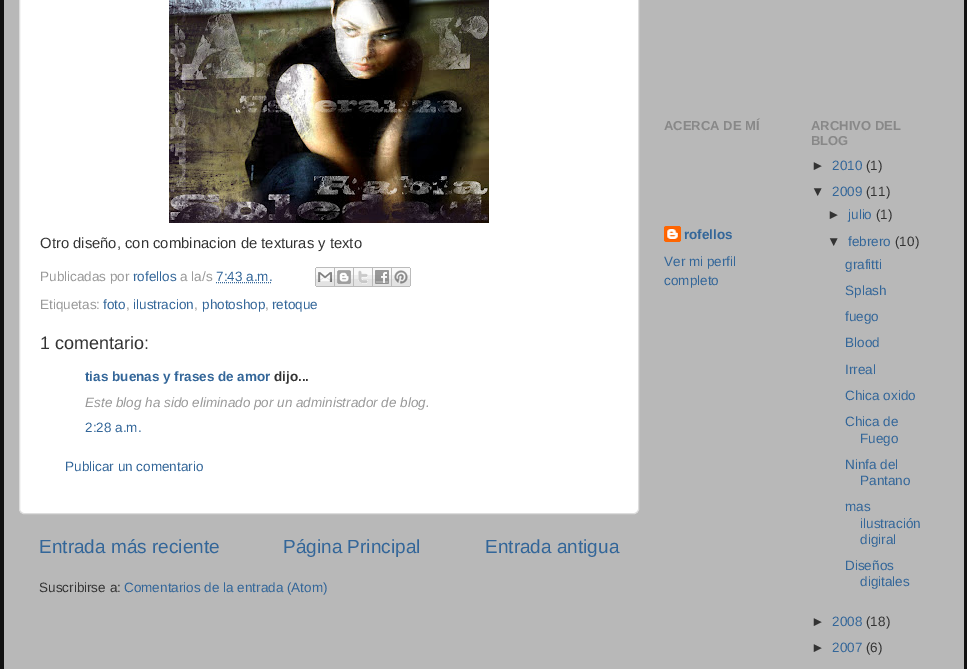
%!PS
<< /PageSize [967 669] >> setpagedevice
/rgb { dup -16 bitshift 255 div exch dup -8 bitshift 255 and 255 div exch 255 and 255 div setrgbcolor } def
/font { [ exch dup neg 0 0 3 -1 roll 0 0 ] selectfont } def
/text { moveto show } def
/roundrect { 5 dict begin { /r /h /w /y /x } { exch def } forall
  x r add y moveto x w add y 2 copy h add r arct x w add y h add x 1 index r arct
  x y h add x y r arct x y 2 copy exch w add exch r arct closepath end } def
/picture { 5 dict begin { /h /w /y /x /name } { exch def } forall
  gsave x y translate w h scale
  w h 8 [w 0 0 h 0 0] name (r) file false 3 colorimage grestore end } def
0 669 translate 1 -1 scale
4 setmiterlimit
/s1 { /LiberationSans-Regular 14.85 font 16#333333 rgb } def
/s2 { /LiberationSans-Regular 13.5 font 16#999999 rgb } def
/s3 { /LiberationSans-Regular 13.5 font 16#336699 rgb } def
/s4 { /LiberationSans-Regular 18 font 16#333333 rgb } def
/s5 { /LiberationSans-Bold 13.5 font 16#336699 rgb } def
/s6 { /LiberationSans-Bold 13.5 font 16#333333 rgb } def
/s7 { /LiberationSans-Italic 13.5 font 16#999999 rgb } def
/s8 { /LiberationSans-Regular 19 font 16#336699 rgb } def
/s9 { /LiberationSans-Regular 13.5 font 16#333333 rgb } def
/s10 { /LiberationSans-Bold 13 font 16#888888 rgb } def
16#111111 rgb
0 0 967 669 rectfill
16#B8B8B8 rgb
4 0 960 669 rectfill
16#FFFFFF rgb
19.5 -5.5 619 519 4.5 roundrect gsave fill grestore
16#DDDDDD rgb
stroke
(pic1.raw) 169 0 320 223 picture
s1
(Otro diseño, con combinacion de texturas y texto) 40 248 text
s2
(Publicadas por) 40 281 text
s3
(rofellos) 133 281 text
s2
(a la/s) 180 281 text
s3
(7:43 a.m.) 216 281 text
[1 1] 0 setdash
216 282.5 moveto 272 282.5 lineto stroke
(pic2.raw) 315 267 20 20 picture
(pic3.raw) 335 267 19 20 picture
(pic4.raw) 354 267 19 20 picture
(pic5.raw) 373 267 19 20 picture
(pic6.raw) 392 267 19 20 picture
s2
(Etiquetas:) 40 309 text
s3
(foto) 103 309 text
s2
(,) 126 309 text
s3
(ilustracion) 133 309 text
s2
(,) 194 309 text
s3
(photoshop) 202 309 text
s2
(,) 265 309 text
s3
(retoque) 272 309 text
s4
(1 comentario:) 40 349 text
s5
(tias buenas y frases de amor) 85 381 text
s6
(dijo...) 274 381 text
s7
(Este blog ha sido eliminado por un administrador de blog.) 85 407 text
s3
(2:28 a.m.) 85 432 text
(Publicar un comentario) 65 471 text
s8
(Entrada más reciente) 39 553 text
(Página Principal) 283 553 text
(Entrada antigua) 485 553 text
s9
(Suscribirse a:) 39 592 text
s3
(Comentarios de la entrada \(Atom\)) 124 592 text
s10
(ACERCA DE MÍ) 664 130 text
(pic7.raw) 664 226 17 16 picture
s5
(rofellos) 684 239 text
s3
(Ver mi perfil) 664 266 text
(completo) 664 285 text
s10
(ARCHIVO DEL) 811 130 text
(BLOG) 811 145 text
s9
(►) 811 170 text
s3
(2010) 832 170 text
s9
(\(1\)) 866 170 text
(▼) 811 196 text
s3
(2009) 832 196 text
s9
(\(11\)) 866 196 text
(►) 827 219 text
s3
(julio) 848 219 text
s9
(\(1\)) 876 219 text
(▼) 827 246 text
s3
(febrero) 848 246 text
s9
(\(10\)) 895 246 text
s3
(grafitti) 845 269 text
(Splash) 845 295 text
(fuego) 845 321 text
(Blood) 845 347 text
(Irreal) 845 374 text
(Chica oxido) 845 400 text
(Chica de) 845 426 text
(Fuego) 860 443 text
(Ninfa del) 845 469 text
(Pantano) 860 485 text
(mas) 845 511 text
(ilustración) 860 528 text
(digiral) 860 544 text
(Diseños) 845 570 text
(digitales) 860 586 text
s9
(►) 811 626 text
s3
(2008) 832 626 text
s9
(\(18\)) 866 626 text
(►) 811 652 text
s3
(2007) 832 652 text
s9
(\(6\)) 866 652 text
showpage
